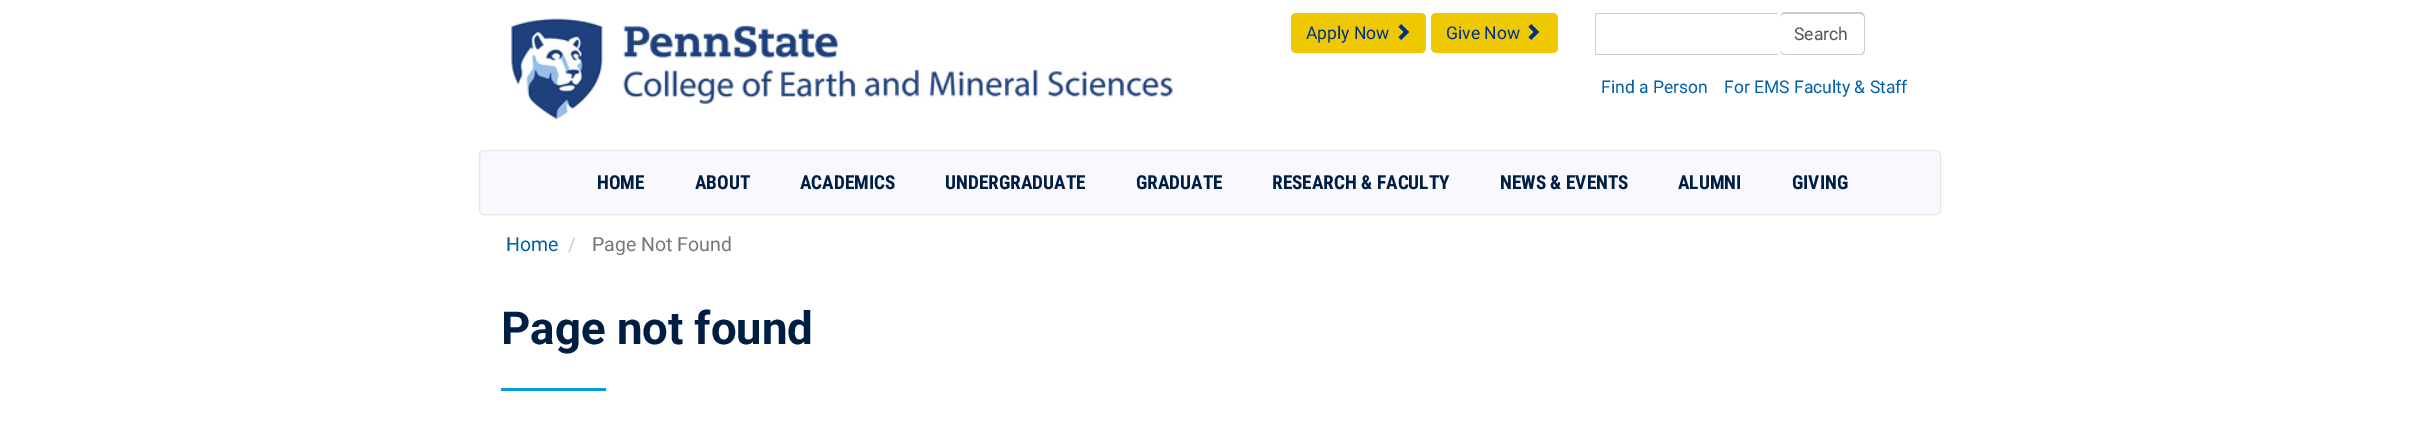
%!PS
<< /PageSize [2419 433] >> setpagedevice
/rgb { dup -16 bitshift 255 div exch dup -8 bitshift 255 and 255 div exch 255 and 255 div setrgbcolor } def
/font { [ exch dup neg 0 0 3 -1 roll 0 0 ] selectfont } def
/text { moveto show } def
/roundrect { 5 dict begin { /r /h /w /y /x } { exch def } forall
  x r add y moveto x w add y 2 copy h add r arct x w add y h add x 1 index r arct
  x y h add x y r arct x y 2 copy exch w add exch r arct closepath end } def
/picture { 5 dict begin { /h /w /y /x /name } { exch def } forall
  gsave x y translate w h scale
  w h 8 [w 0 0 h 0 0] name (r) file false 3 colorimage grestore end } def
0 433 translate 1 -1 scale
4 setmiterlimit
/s1 { /Roboto-Regular 17.5 font 16#003087 rgb } def
/s2 { /Roboto-Regular 17.5 font 16#555555 rgb } def
/s3 { /Roboto-Regular 17.5 font 16#005FA9 rgb } def
/s4 { /RobotoCondensed-Bold 19.25 font 16#001E44 rgb } def
/s5 { /Roboto-Regular 19.5 font 16#005FA9 rgb } def
/s6 { /Roboto-Regular 19.5 font 16#CCCCCC rgb } def
/s7 { /Roboto-Regular 19.5 font 16#777777 rgb } def
/s8 { /Roboto-Bold 45.5 font 16#001E44 rgb } def
16#FFFFFF rgb
0 0 2419 433 rectfill
(pic1.raw) 511 18 92 102 picture
(pic2.raw) 623 25 216 33 picture
(pic3.raw) 623 69 550 35 picture
16#EFC900 rgb
1291 13 135 40 5 roundrect fill
s1
(Apply Now) 1306 39 text
(pic4.raw) 1398 24 12 16 picture
16#EFC900 rgb
1431 13 127 40 5 roundrect fill
s1
(Give Now) 1446 39 text
(pic4.raw) 1528 24 12 16 picture
16#CCCCCC rgb
1595 13 183 1 rectfill
1595 54 183 1 rectfill
1595 13 1 42 rectfill
1785 12 moveto 1860 12 lineto 1863 12 1865 15 1865 18 curveto 1865 50 lineto 1865 53 1863 55 1860 55 curveto 1785 55 lineto 1782 55 1780 53 1780 50 curveto 1780 18 lineto 1780 15 1782 12 1785 12 curveto closepath 1785 14 moveto 1860 14 lineto 1862 14 1864 15 1864 18 curveto 1864 50 lineto 1864 52 1862 54 1860 54 curveto 1785 54 lineto 1782 54 1780 52 1780 50 curveto 1780 18 lineto 1780 15 1782 14 1785 14 curveto closepath eofill
s2
(Search) 1794 40 text
s3
(Find a Person) 1601 93 text
(For EMS Faculty & Staff) 1724 93 text
16#F8F8FE rgb
479.5 150.5 1461 64 4.5 roundrect gsave fill grestore
16#E7E7E7 rgb
stroke
s4
(HOME) 597 189 text
(ABOUT) 695 189 text
(ACADEMICS) 800 189 text
(UNDERGRADUATE) 945 189 text
(GRADUATE) 1136 189 text
(RESEARCH & FACULTY) 1272 189 text
(NEWS & EVENTS) 1500 189 text
(ALUMNI) 1678 189 text
(GIVING) 1792 189 text
s5
(Home) 506 251 text
s6
(/) 568 251 text
s7
(Page Not Found) 592 251 text
s8
(Page not found) 501 344 text
16#009CDE rgb
501 388 105 3 rectfill
showpage
